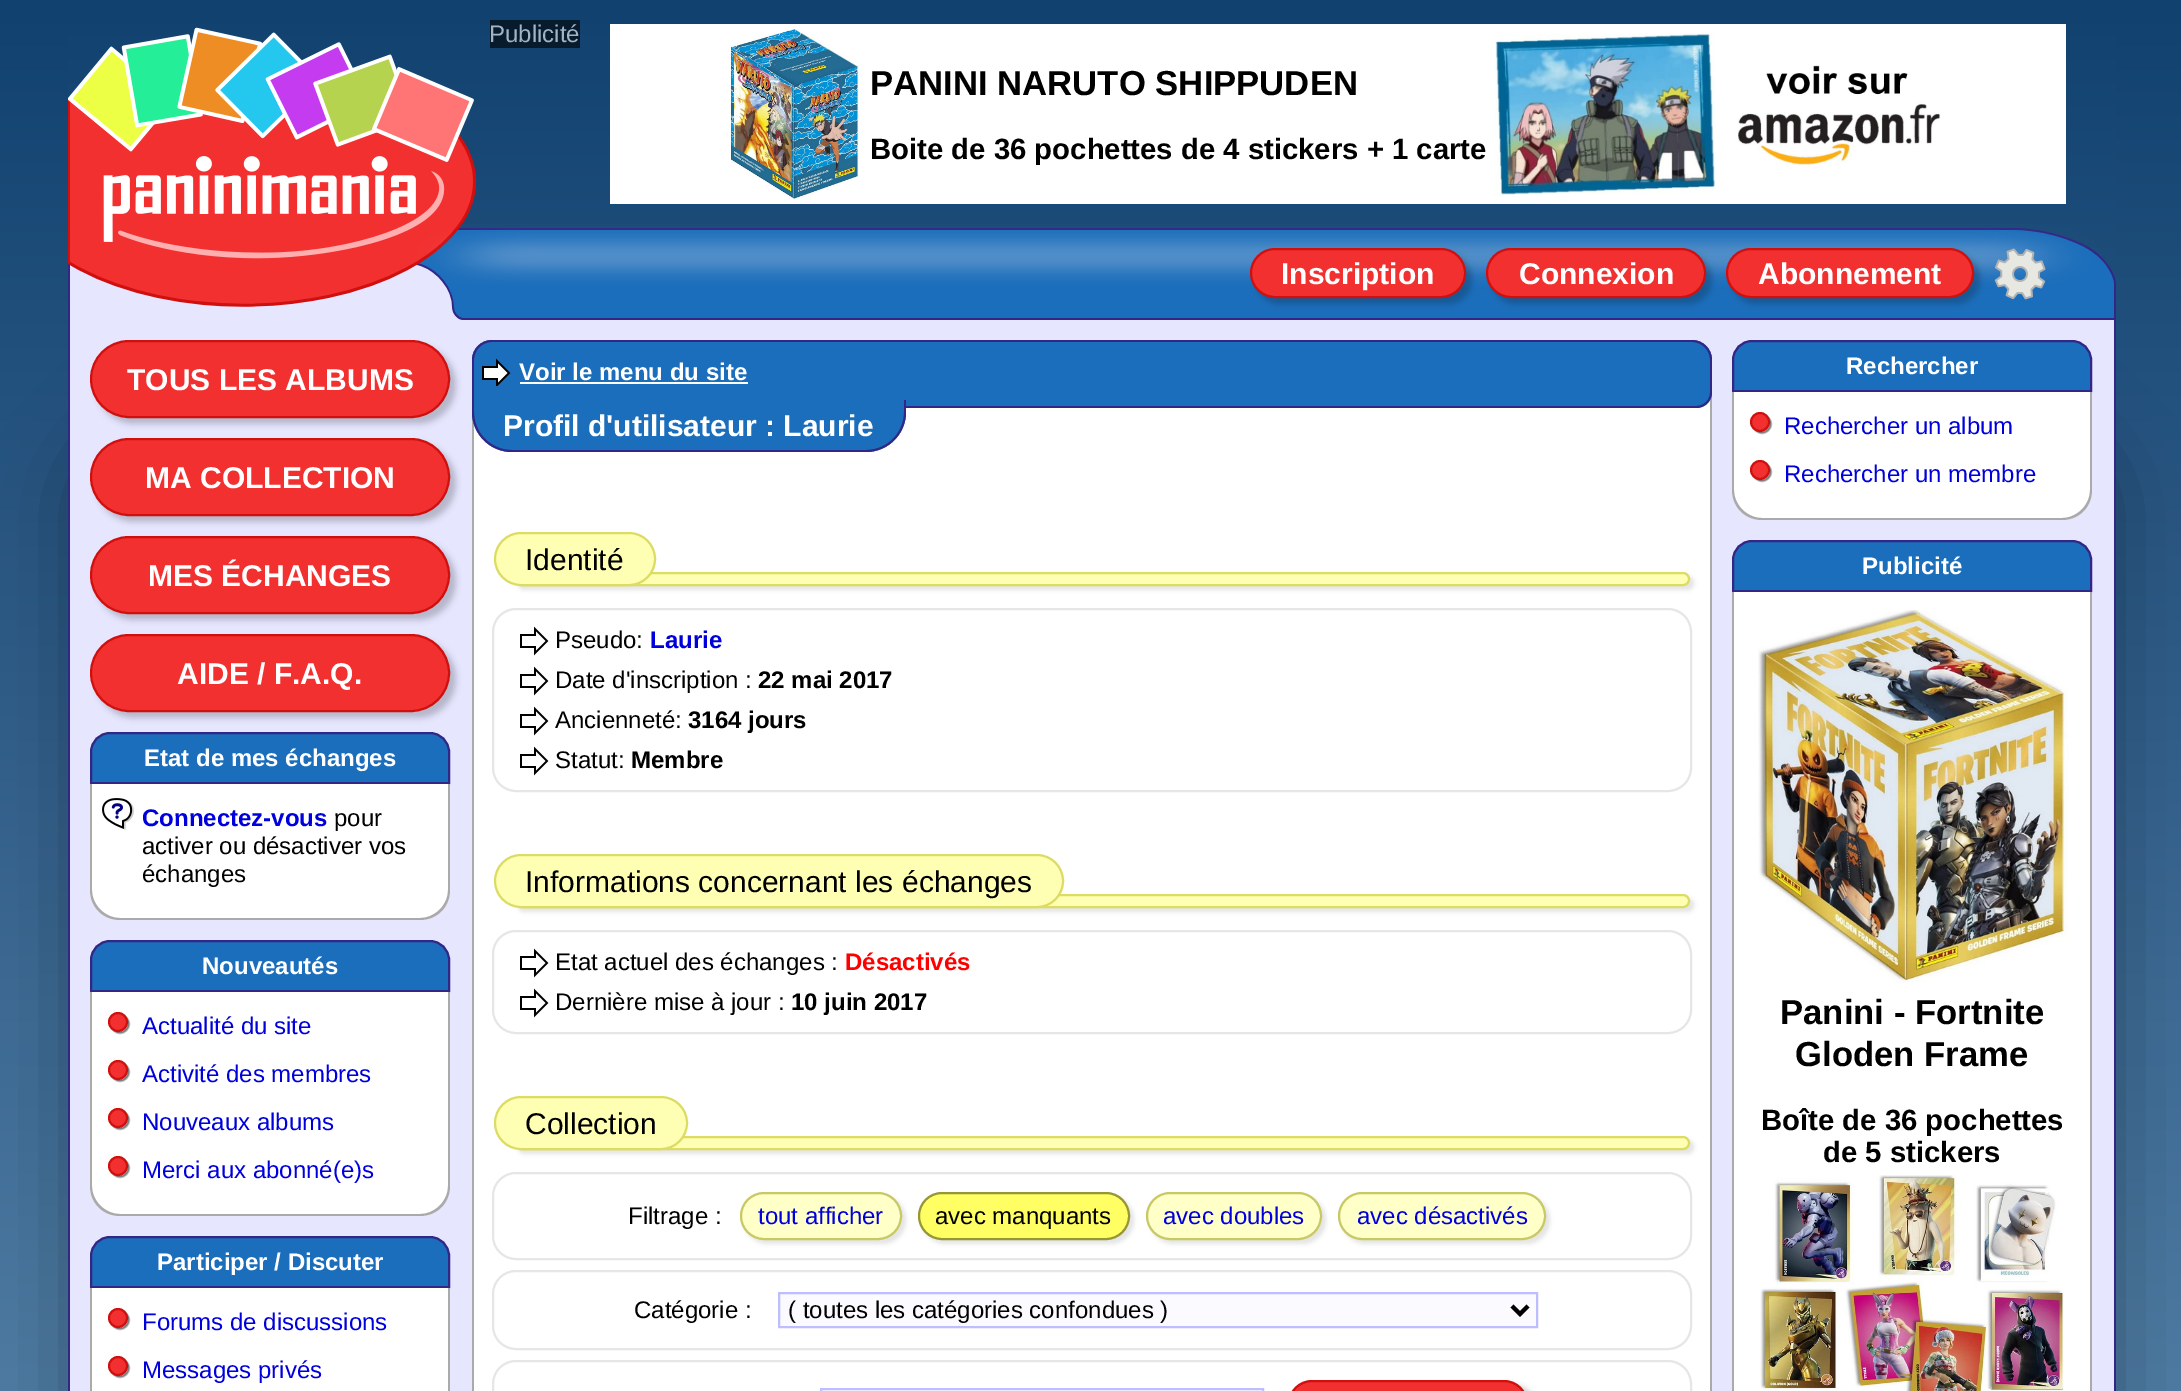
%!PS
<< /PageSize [2181 1391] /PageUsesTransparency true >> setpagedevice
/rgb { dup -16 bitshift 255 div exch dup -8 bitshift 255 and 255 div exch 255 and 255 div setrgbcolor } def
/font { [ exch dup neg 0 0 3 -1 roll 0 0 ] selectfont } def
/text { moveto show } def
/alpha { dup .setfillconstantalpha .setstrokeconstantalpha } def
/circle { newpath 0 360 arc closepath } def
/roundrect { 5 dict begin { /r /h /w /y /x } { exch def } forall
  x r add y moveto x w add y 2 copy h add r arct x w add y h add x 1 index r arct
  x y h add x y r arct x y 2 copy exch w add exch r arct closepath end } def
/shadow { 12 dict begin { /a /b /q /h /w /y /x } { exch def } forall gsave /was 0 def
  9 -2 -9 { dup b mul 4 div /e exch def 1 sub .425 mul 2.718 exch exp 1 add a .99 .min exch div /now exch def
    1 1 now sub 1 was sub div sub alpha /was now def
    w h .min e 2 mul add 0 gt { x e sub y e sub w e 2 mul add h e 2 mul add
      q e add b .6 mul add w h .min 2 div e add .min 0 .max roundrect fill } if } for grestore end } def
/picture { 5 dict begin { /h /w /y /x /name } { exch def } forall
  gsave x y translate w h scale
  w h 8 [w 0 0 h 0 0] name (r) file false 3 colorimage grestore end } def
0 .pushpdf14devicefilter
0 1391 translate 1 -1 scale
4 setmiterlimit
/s1 { /LiberationSans-Regular 24 font 16#A0B4C6 rgb } def
/s2 { /LiberationSans-Bold 34.7 font 16#000000 rgb } def
/s3 { /LiberationSans-Bold 29.3 font 16#000000 rgb } def
/s4 { /LiberationSans-Bold 30 font 16#FFFFFF rgb } def
/s5 { /LiberationSans-Bold 24 font 16#FFFFFF rgb } def
/s6 { /LiberationSans-Bold 24 font 16#0000DC rgb } def
/s7 { /LiberationSans-Regular 24 font 16#000000 rgb } def
/s8 { /LiberationSans-Regular 24 font 16#0000DC rgb } def
/s9 { /LiberationSans-Regular 30 font 16#000000 rgb } def
/s10 { /LiberationSans-Bold 24 font 16#000000 rgb } def
/s11 { /LiberationSans-Bold 24 font 16#FF0000 rgb } def
16#FFFFFF rgb
0 0 2181 1391 rectfill
gsave 0 0 moveto 2181 0 lineto 2181 1391 lineto 0 1391 lineto closepath clip newpath
<< /ShadingType 2 /ColorSpace /DeviceRGB /Coords [1091 0 1091 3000] /Extend [true true] /Function << /FunctionType 2 /Domain [0 1] /C0 [0.067 0.255 0.435] /C1 [0.596 0.753 0.886] /N 1 >> >> shfill grestore
(pic9.raw) 68 27 2048 293 picture
(pic11.raw) 1994 248 52 52 picture
16#000000 rgb
68 420 2048 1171 80 40 0.3 shadow
16#E6E6FF rgb
70 320 2044 1071 rectfill
16#322787 rgb
68 320 moveto 2116 320 lineto 2116 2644 lineto 2116 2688 2080 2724 2036 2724 curveto 148 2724 lineto 104 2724 68 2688 68 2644 curveto closepath 70 320 moveto 2114 320 lineto 2114 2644 lineto 2114 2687 2079 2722 2036 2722 curveto 148 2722 lineto 105 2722 70 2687 70 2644 curveto closepath eofill
16#071B2D rgb
490 20 90 28 rectfill
s1
(Publicité) 489 42 text
16#FFFFFF rgb
610 24 1456 180 rectfill
(pic1.raw) 730 29 129 170 picture
s2
(PANINI NARUTO SHIPPUDEN) 870 95 text
s3
(Boite de 36 pochettes de 4 stickers + 1 carte) 870 159 text
(pic2.raw) 1495 33 221 162 picture
(pic3.raw) 1738 65 203 100 picture
96 346 360 78 39 3 0.2 shadow
16#F23030 rgb
91 341 358 76 38 roundrect gsave fill grestore
16#D00F0F rgb
2 setlinewidth
stroke
s4
(TOUS LES ALBUMS) 127 390 text
16#000000 rgb
96 444 360 78 39 3 0.2 shadow
16#F23030 rgb
91 439 358 76 38 roundrect gsave fill grestore
16#D00F0F rgb
stroke
s4
(MA COLLECTION) 145 488 text
16#000000 rgb
96 542 360 78 39 3 0.2 shadow
16#F23030 rgb
91 537 358 76 38 roundrect gsave fill grestore
16#D00F0F rgb
stroke
s4
(MES ÉCHANGES) 148 586 text
16#000000 rgb
96 640 360 78 39 3 0.2 shadow
16#F23030 rgb
91 635 358 76 38 roundrect gsave fill grestore
16#D00F0F rgb
stroke
s4
(AIDE / F.A.Q.) 177 684 text
16#1B6EBB rgb
110 733 moveto 430 733 lineto 440.5 733 449 741.5 449 752 curveto 449 783 lineto 91 783 lineto 91 752 lineto 91 741.5 99.5 733 110 733 curveto closepath gsave fill grestore
16#322787 rgb
stroke
s5
(Etat de mes échanges) 144 766 text
90 784 moveto 450 784 lineto 450 890 lineto 450 906.5 436.5 920 420 920 curveto 120 920 lineto 103.5 920 90 906.5 90 890 curveto closepath fill
16#AAAAAA rgb
90 784 moveto 450 784 lineto 450 890 lineto 450 907 437 920 420 920 curveto 120 920 lineto 103 920 90 907 90 890 curveto closepath 92 784 moveto 448 784 lineto 448 890 lineto 448 905 435 918 420 918 curveto 120 918 lineto 105 918 92 905 92 890 curveto closepath eofill
(pic4.raw) 102 798 32 32 picture
s6
(Connectez-vous) 142 826 text
s7
(pour) 334 826 text
(activer ou désactiver vos) 142 854 text
(échanges) 142 882 text
16#1B6EBB rgb
110 941 moveto 430 941 lineto 440.5 941 449 949.5 449 960 curveto 449 991 lineto 91 991 lineto 91 960 lineto 91 949.5 99.5 941 110 941 curveto closepath gsave fill grestore
16#322787 rgb
stroke
s5
(Nouveautés) 202 974 text
90 992 moveto 450 992 lineto 450 1186 lineto 450 1202.5 436.5 1216 420 1216 curveto 120 1216 lineto 103.5 1216 90 1202.5 90 1186 curveto closepath fill
16#AAAAAA rgb
90 992 moveto 450 992 lineto 450 1186 lineto 450 1203 437 1216 420 1216 curveto 120 1216 lineto 103 1216 90 1203 90 1186 curveto closepath 92 992 moveto 448 992 lineto 448 1186 lineto 448 1201 435 1214 420 1214 curveto 120 1214 lineto 105 1214 92 1201 92 1186 curveto closepath eofill
16#B3B3B3 rgb
120 1024 9 circle fill
0.3 alpha
16#000000 rgb
120 1024 9 circle stroke
1 alpha
16#F23030 rgb
118 1022 9 circle gsave fill grestore
16#D00F0F rgb
stroke
s8
(Actualité du site) 142 1034 text
16#B3B3B3 rgb
120 1072 9 circle fill
0.3 alpha
16#000000 rgb
120 1072 9 circle stroke
1 alpha
16#F23030 rgb
118 1070 9 circle gsave fill grestore
16#D00F0F rgb
stroke
s8
(Activité des membres) 142 1082 text
16#B3B3B3 rgb
120 1120 9 circle fill
0.3 alpha
16#000000 rgb
120 1120 9 circle stroke
1 alpha
16#F23030 rgb
118 1118 9 circle gsave fill grestore
16#D00F0F rgb
stroke
s8
(Nouveaux albums) 142 1130 text
16#B3B3B3 rgb
120 1168 9 circle fill
0.3 alpha
16#000000 rgb
120 1168 9 circle stroke
1 alpha
16#F23030 rgb
118 1166 9 circle gsave fill grestore
16#D00F0F rgb
stroke
s8
(Merci aux abonné\(e\)s) 142 1178 text
16#1B6EBB rgb
110 1237 moveto 430 1237 lineto 440.5 1237 449 1245.5 449 1256 curveto 449 1287 lineto 91 1287 lineto 91 1256 lineto 91 1245.5 99.5 1237 110 1237 curveto closepath gsave fill grestore
16#322787 rgb
stroke
s5
(Participer / Discuter) 157 1270 text
92 1288 356 103 rectfill
16#AAAAAA rgb
90 1288 moveto 450 1288 lineto 450 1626 lineto 450 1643 437 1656 420 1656 curveto 120 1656 lineto 103 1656 90 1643 90 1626 curveto closepath 92 1288 moveto 448 1288 lineto 448 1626 lineto 448 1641 435 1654 420 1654 curveto 120 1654 lineto 105 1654 92 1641 92 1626 curveto closepath eofill
16#B3B3B3 rgb
120 1320 9 circle fill
0.3 alpha
16#000000 rgb
120 1320 9 circle stroke
1 alpha
16#F23030 rgb
118 1318 9 circle gsave fill grestore
16#D00F0F rgb
stroke
s8
(Forums de discussions) 142 1330 text
16#B3B3B3 rgb
120 1368 9 circle fill
0.3 alpha
16#000000 rgb
120 1368 9 circle stroke
1 alpha
16#F23030 rgb
118 1366 9 circle gsave fill grestore
16#D00F0F rgb
stroke
s8
(Messages privés) 142 1378 text
16#1B6EBB rgb
492 340 moveto 1692 340 lineto 1703 340 1712 349 1712 360 curveto 1712 392 lineto 472 392 lineto 472 360 lineto 472 349 481 340 492 340 curveto closepath fill
16#322787 rgb
492 340 moveto 1692 340 lineto 1703 340 1712 349 1712 360 curveto 1712 392 lineto 472 392 lineto 472 360 lineto 472 349 481 340 492 340 curveto closepath 492 342 moveto 1692 342 lineto 1702 342 1710 350 1710 360 curveto 1710 392 lineto 474 392 lineto 474 360 lineto 474 350 482 342 492 342 curveto closepath eofill
(pic5.raw) 482 358 29 28 picture
s5
(Voir le menu du site) 519 380 text
520 382 228 2 rectfill
16#AAAAAA rgb
1710 392 2 60 rectfill
472 412 2 40 rectfill
16#FFFFFF rgb
474 399 1236 992 rectfill
16#1B6EBB rgb
472 392 moveto 1712 392 lineto 1712 401 1705 408 1696 408 curveto 472 408 lineto closepath fill
16#322787 rgb
472 392 moveto 1712 392 lineto 1712 401 1705 408 1696 408 curveto 472 408 lineto closepath 474 392 moveto 1710 392 lineto 1710 400 1704 406 1696 406 curveto 474 406 lineto closepath eofill
16#1B6EBB rgb
472 400 moveto 906 400 lineto 906 412 lineto 906 434 888 452 866 452 curveto 512 452 lineto 490 452 472 434 472 412 curveto closepath fill
16#322787 rgb
472 400 moveto 906 400 lineto 906 412 lineto 906 434 888 452 866 452 curveto 512 452 lineto 490 452 472 434 472 412 curveto closepath 474 400 moveto 904 400 lineto 904 412 lineto 904 433 887 450 866 450 curveto 512 450 lineto 491 450 474 433 474 412 curveto closepath eofill
s4
(Profil d'utilisateur : Laurie) 503 436 text
16#AAAAAA rgb
472 452 moveto 1712 452 lineto 1712 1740 lineto 1712 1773 1685 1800 1652 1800 curveto 532 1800 lineto 499 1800 472 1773 472 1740 curveto closepath 474 452 moveto 1710 452 lineto 1710 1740 lineto 1710 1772 1684 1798 1652 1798 curveto 532 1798 lineto 500 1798 474 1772 474 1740 curveto closepath eofill
16#000000 rgb
518 576 1176 14 7 2 0.1 shadow
16#FFFFB4 rgb
515 573 1174 12 6 roundrect gsave fill grestore
16#DCDC64 rgb
stroke
16#FFFFB4 rgb
495 533 160 52 26 roundrect gsave fill grestore
16#DCDC64 rgb
stroke
s9
(Identité) 525 570 text
16#E6E6E6 rgb
493 609 1198 182 23 roundrect stroke
(pic6.raw) 520 626 29 30 picture
s7
(Pseudo:) 555 648 text
s6
(Laurie) 650 648 text
(pic6.raw) 520 666 29 30 picture
s7
(Date d'inscription :) 555 688 text
s10
(22 mai 2017) 758 688 text
(pic6.raw) 520 706 29 30 picture
s7
(Ancienneté:) 555 728 text
s10
(3164 jours) 688 728 text
(pic6.raw) 520 746 29 30 picture
s7
(Statut:) 555 768 text
s10
(Membre) 631 768 text
518 898 1176 14 7 2 0.1 shadow
16#FFFFB4 rgb
515 895 1174 12 6 roundrect gsave fill grestore
16#DCDC64 rgb
stroke
16#FFFFB4 rgb
495 855 568 52 26 roundrect gsave fill grestore
16#DCDC64 rgb
stroke
s9
(Informations concernant les échanges) 525 892 text
16#E6E6E6 rgb
493 931 1198 102 23 roundrect stroke
(pic6.raw) 520 948 29 30 picture
s7
(Etat actuel des échanges :) 555 970 text
s11
(Désactivés) 845 970 text
(pic6.raw) 520 988 29 30 picture
s7
(Dernière mise à jour :) 555 1010 text
s10
(10 juin 2017) 791 1010 text
518 1140 1176 14 7 2 0.1 shadow
16#FFFFB4 rgb
515 1137 1174 12 6 roundrect gsave fill grestore
16#DCDC64 rgb
stroke
16#FFFFB4 rgb
495 1097 192 52 26 roundrect gsave fill grestore
16#DCDC64 rgb
stroke
s9
(Collection) 525 1134 text
16#E6E6E6 rgb
493 1173 1198 86 23 roundrect stroke
s7
(Filtrage :) 628 1224 text
744 1196 162 48 24 2 0.1 shadow
16#FFFFC8 rgb
741 1193 160 46 23 roundrect gsave fill grestore
16#C8C864 rgb
stroke
s8
(tout afficher) 758 1224 text
16#000000 rgb
922 1196 212 48 24 2 0.1 shadow
16#FFFF64 rgb
919 1193 210 46 23 roundrect gsave fill grestore
16#969632 rgb
stroke
s7
(avec manquants) 935 1224 text
1150 1196 176 48 24 2 0.1 shadow
16#FFFFC8 rgb
1147 1193 174 46 23 roundrect gsave fill grestore
16#C8C864 rgb
stroke
s8
(avec doubles) 1163 1224 text
16#000000 rgb
1342 1196 208 48 24 2 0.1 shadow
16#FFFFC8 rgb
1339 1193 206 46 23 roundrect gsave fill grestore
16#C8C864 rgb
stroke
s8
(avec désactivés) 1357 1224 text
16#E6E6E6 rgb
493 1271 1198 78 23 roundrect stroke
s7
(Catégorie :) 634 1318 text
16#FAFAFF rgb
779 1293 moveto 1537 1293 lineto 1537 1327 lineto 779 1327 lineto closepath gsave fill grestore
16#BEBEFF rgb
stroke
16#000000 rgb
4 setlinewidth
1512 1306 moveto 1520 1314 lineto 1528 1306 lineto stroke
(\( toutes les catégories confondues \)) 788 1318 text
16#E6E6E6 rgb
2 setlinewidth
493 1361 1198 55 23 roundrect stroke
16#FAFAFF rgb
821 1389 moveto 1263 1389 lineto 1263 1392 lineto 821 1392 lineto closepath gsave fill grestore
16#BEBEFF rgb
stroke
16#000000 rgb
1294 1386 240 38 24 3 0.2 shadow
16#F23030 rgb
1289 1381 238 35 23 roundrect gsave fill grestore
16#D00F0F rgb
stroke
16#1B6EBB rgb
1752 341 moveto 2072 341 lineto 2082.5 341 2091 349.5 2091 360 curveto 2091 391 lineto 1733 391 lineto 1733 360 lineto 1733 349.5 1741.5 341 1752 341 curveto closepath gsave fill grestore
16#322787 rgb
stroke
s5
(Rechercher) 1846 374 text
1732 392 moveto 2092 392 lineto 2092 490 lineto 2092 506.5 2078.5 520 2062 520 curveto 1762 520 lineto 1745.5 520 1732 506.5 1732 490 curveto closepath fill
16#AAAAAA rgb
1732 392 moveto 2092 392 lineto 2092 490 lineto 2092 507 2079 520 2062 520 curveto 1762 520 lineto 1745 520 1732 507 1732 490 curveto closepath 1734 392 moveto 2090 392 lineto 2090 490 lineto 2090 505 2077 518 2062 518 curveto 1762 518 lineto 1747 518 1734 505 1734 490 curveto closepath eofill
16#B3B3B3 rgb
1762 424 9 circle fill
0.3 alpha
16#000000 rgb
1762 424 9 circle stroke
1 alpha
16#F23030 rgb
1760 422 9 circle gsave fill grestore
16#D00F0F rgb
stroke
s8
(Rechercher un album) 1784 434 text
16#B3B3B3 rgb
1762 472 9 circle fill
0.3 alpha
16#000000 rgb
1762 472 9 circle stroke
1 alpha
16#F23030 rgb
1760 470 9 circle gsave fill grestore
16#D00F0F rgb
stroke
s8
(Rechercher un membre) 1784 482 text
16#1B6EBB rgb
1752 541 moveto 2072 541 lineto 2082.5 541 2091 549.5 2091 560 curveto 2091 591 lineto 1733 591 lineto 1733 560 lineto 1733 549.5 1741.5 541 1752 541 curveto closepath gsave fill grestore
16#322787 rgb
stroke
s5
(Publicité) 1862 574 text
1734 592 356 799 rectfill
16#AAAAAA rgb
1732 592 moveto 2092 592 lineto 2092 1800 lineto 2092 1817 2079 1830 2062 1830 curveto 1762 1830 lineto 1745 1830 1732 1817 1732 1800 curveto closepath 1734 592 moveto 2090 592 lineto 2090 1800 lineto 2090 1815 2077 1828 2062 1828 curveto 1762 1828 lineto 1747 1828 1734 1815 1734 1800 curveto closepath eofill
(pic7.raw) 1758 610 311 372 picture
s2
(Panini - Fortnite) 1780 1024 text
(Gloden Frame) 1795 1066 text
s3
(Boîte de 36 pochettes) 1761 1130 text
(de 5 stickers) 1823 1162 text
(pic8.raw) 1760 1175 304 216 picture
(pic10.raw) 103 156 342 103 picture
1256 254 216 50 25 3 0.2 shadow
16#F23030 rgb
1251 249 214 48 24 roundrect gsave fill grestore
16#D00F0F rgb
stroke
s4
(Inscription) 1281 284 text
16#000000 rgb
1492 254 220 50 25 3 0.2 shadow
16#F23030 rgb
1487 249 218 48 24 roundrect gsave fill grestore
16#D00F0F rgb
stroke
s4
(Connexion) 1519 284 text
16#000000 rgb
1732 254 248 50 25 3 0.2 shadow
16#F23030 rgb
1727 249 246 48 24 roundrect gsave fill grestore
16#D00F0F rgb
stroke
s4
(Abonnement) 1758 284 text
.poppdf14devicefilter showpage
